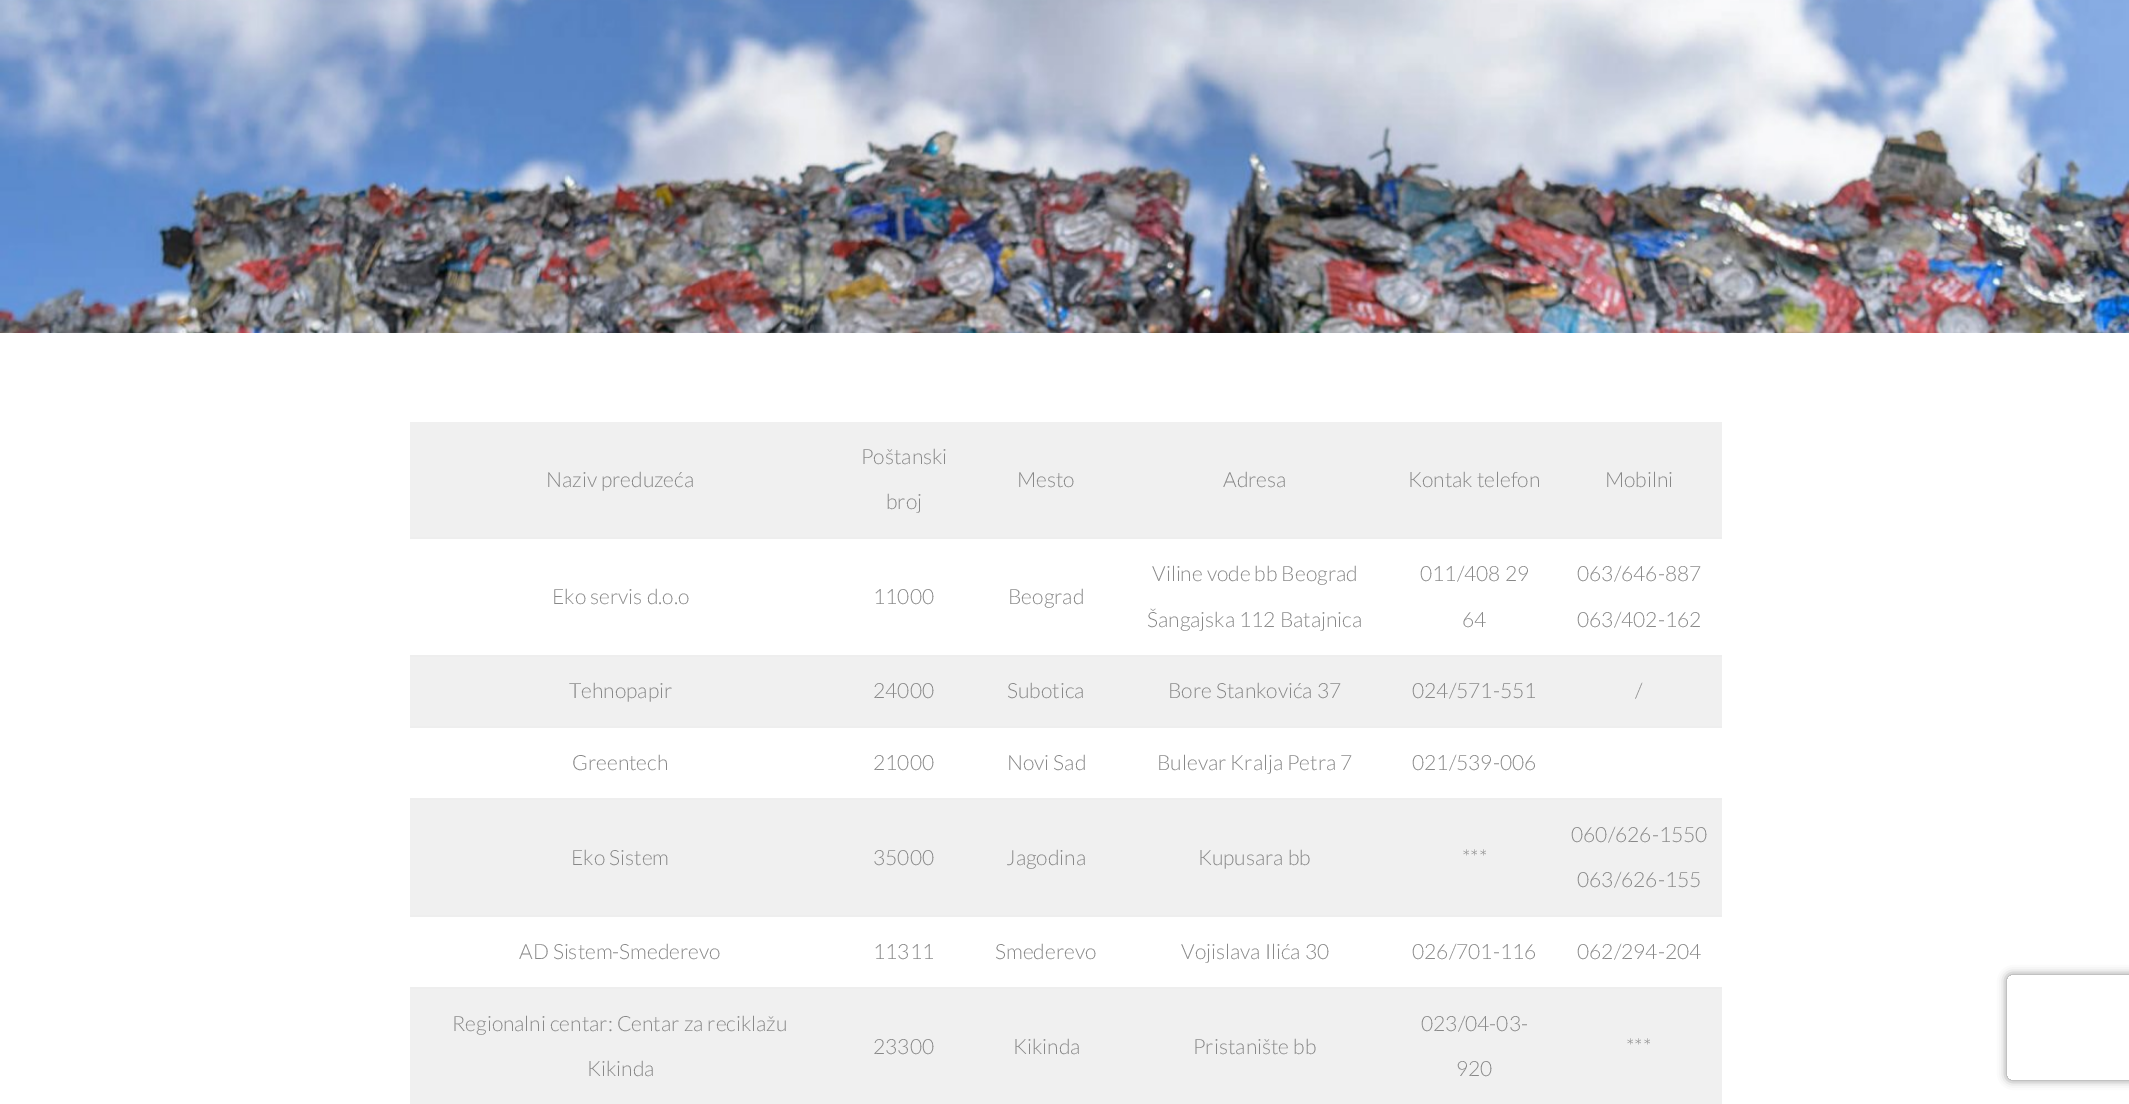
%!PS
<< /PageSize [2129 1104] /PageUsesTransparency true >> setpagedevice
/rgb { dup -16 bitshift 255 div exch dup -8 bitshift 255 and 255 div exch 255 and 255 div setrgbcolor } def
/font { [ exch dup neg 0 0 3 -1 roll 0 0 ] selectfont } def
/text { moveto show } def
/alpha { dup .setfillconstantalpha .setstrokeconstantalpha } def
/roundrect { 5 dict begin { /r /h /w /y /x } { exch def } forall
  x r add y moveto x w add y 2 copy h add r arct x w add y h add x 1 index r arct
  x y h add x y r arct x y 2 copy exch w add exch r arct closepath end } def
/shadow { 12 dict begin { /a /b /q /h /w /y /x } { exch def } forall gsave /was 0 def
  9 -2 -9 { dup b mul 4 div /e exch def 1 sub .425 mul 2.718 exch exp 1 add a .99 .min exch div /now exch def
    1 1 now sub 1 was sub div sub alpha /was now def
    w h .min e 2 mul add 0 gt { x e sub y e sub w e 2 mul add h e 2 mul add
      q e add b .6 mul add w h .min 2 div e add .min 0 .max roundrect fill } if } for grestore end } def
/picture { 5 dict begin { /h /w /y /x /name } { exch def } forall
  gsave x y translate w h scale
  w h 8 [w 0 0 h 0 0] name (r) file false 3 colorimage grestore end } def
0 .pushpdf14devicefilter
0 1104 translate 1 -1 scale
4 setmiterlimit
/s1 { /Lato-Light 21 font 16#888888 rgb } def
16#FFFFFF rgb
0 0 2129 1104 rectfill
(pic1.raw) 0 0 2129 333 picture
16#F0F0F0 rgb
410 422 1312 115 rectfill
16#EEEEEE rgb
410 537 1312 2 rectfill
s1
(Naziv preduzeća) 546 487 text
(Poštanski) 861 464 text
(broj) 886 509 text
(Mesto) 1017 487 text
(Adresa) 1223 487 text
(Kontak telefon) 1408 487 text
(Mobilni) 1605 487 text
16#EEEEEE rgb
410 655 1312 2 rectfill
s1
(Eko servis d.o.o) 552 604 text
(11000) 873 604 text
(Beograd) 1008 604 text
(Viline vode bb Beograd) 1152 581 text
(Šangajska 112 Batajnica) 1147 627 text
(011/408 29) 1420 581 text
(64) 1462 627 text
(063/646-887) 1577 581 text
(063/402-162) 1577 627 text
16#F0F0F0 rgb
410 657 1312 69 rectfill
16#EEEEEE rgb
410 726 1312 2 rectfill
s1
(Tehnopapir) 569 698 text
(24000) 873 698 text
(Subotica) 1007 698 text
(Bore Stankovića 37) 1168 698 text
(024/571-551) 1412 698 text
(/) 1635 698 text
16#EEEEEE rgb
410 798 1312 2 rectfill
s1
(Greentech) 572 770 text
(21000) 873 770 text
(Novi Sad) 1007 770 text
(Bulevar Kralja Petra 7) 1157 770 text
(021/539-006) 1412 770 text
16#F0F0F0 rgb
410 800 1312 115 rectfill
16#EEEEEE rgb
410 915 1312 2 rectfill
s1
(Eko Sistem) 571 865 text
(35000) 873 865 text
(Jagodina) 1006 865 text
(Kupusara bb) 1198 865 text
(***) 1462 865 text
(060/626-1550) 1571 842 text
(063/626-155) 1577 887 text
16#EEEEEE rgb
410 987 1312 2 rectfill
s1
(AD Sistem-Smederevo) 519 959 text
(11311) 873 959 text
(Smederevo) 995 959 text
(Vojislava Ilića 30) 1181 959 text
(026/701-116) 1412 959 text
(062/294-204) 1577 959 text
16#F0F0F0 rgb
410 989 1312 115 rectfill
s1
(Regionalni centar: Centar za reciklažu) 452 1031 text
(Kikinda) 587 1076 text
(23300) 873 1054 text
(Kikinda) 1013 1054 text
(Pristanište bb) 1193 1054 text
(023/04-03-) 1421 1031 text
(920) 1456 1076 text
(***) 1626 1054 text
gsave
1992 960 moveto 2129 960 lineto 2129 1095 lineto 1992 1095 lineto closepath 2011 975 moveto 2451 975 lineto 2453 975 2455 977 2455 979 curveto 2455 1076 lineto 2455 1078 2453 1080 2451 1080 curveto 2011 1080 lineto 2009 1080 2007 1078 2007 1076 curveto 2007 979 lineto 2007 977 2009 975 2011 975 curveto closepath eoclip newpath
16#808080 rgb
2007 975 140 105 4 4.5 1 shadow
grestore
.poppdf14devicefilter showpage
